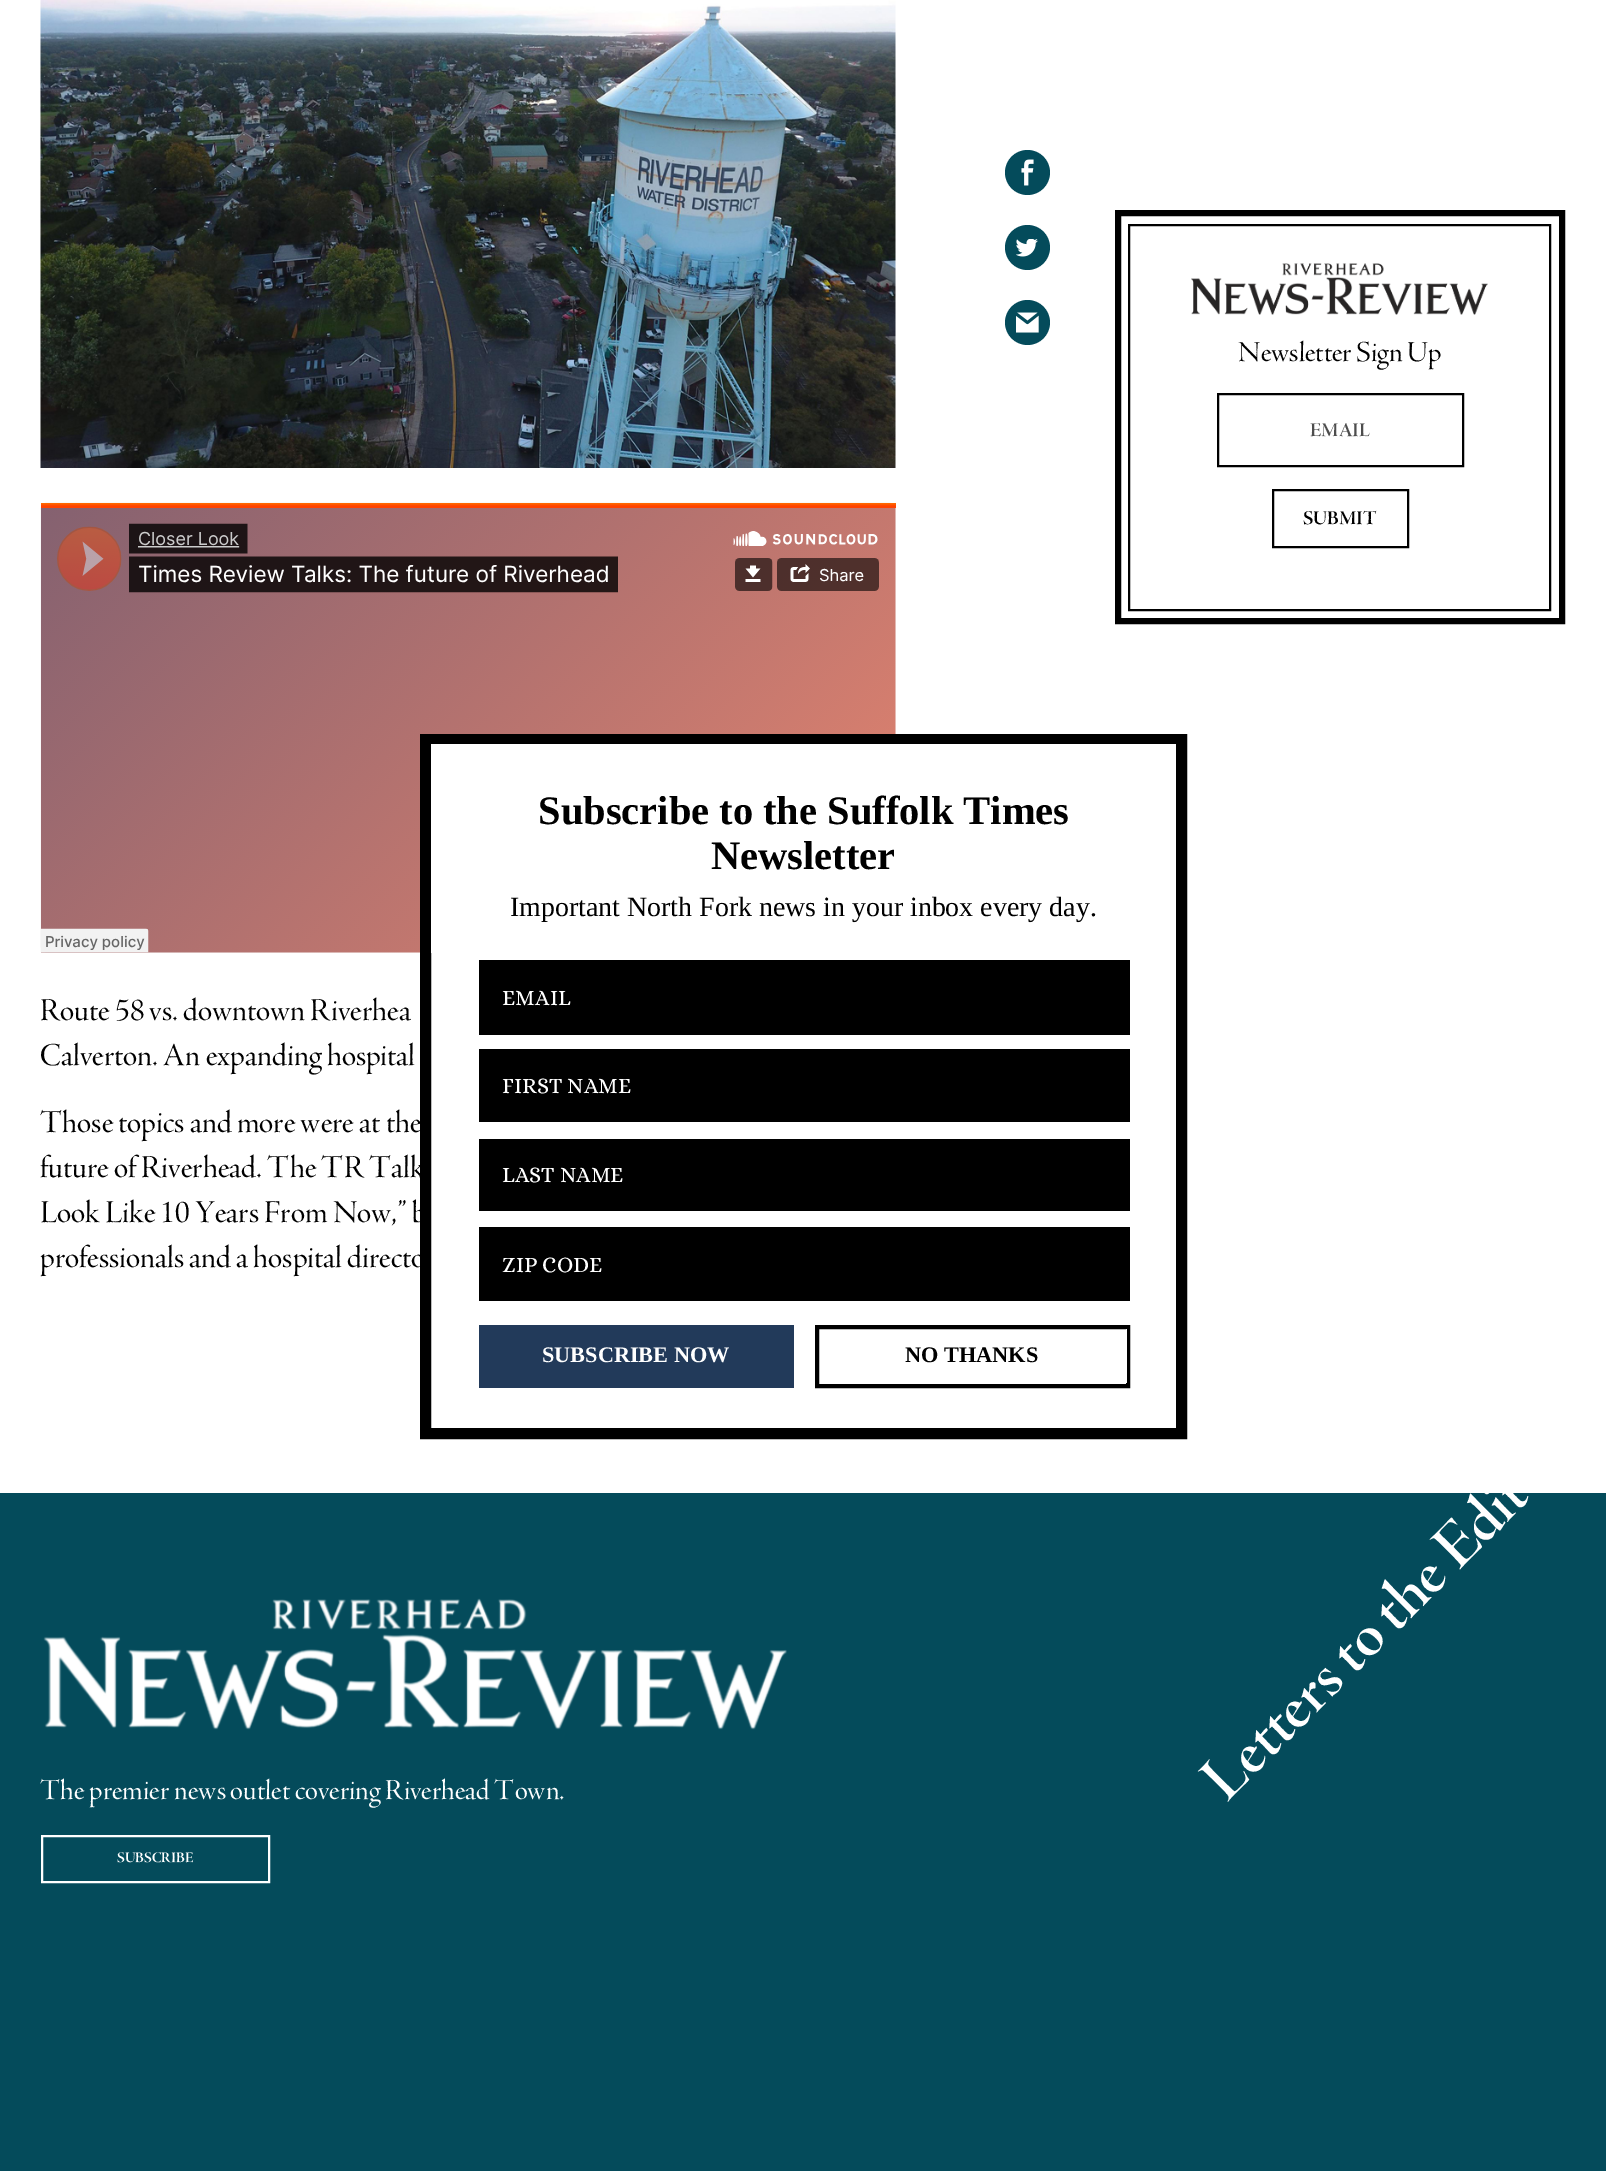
%!PS
<< /PageSize [1606 2171] >> setpagedevice
/rgb { dup -16 bitshift 255 div exch dup -8 bitshift 255 and 255 div exch 255 and 255 div setrgbcolor } def
/font { [ exch dup neg 0 0 3 -1 roll 0 0 ] selectfont } def
/text { moveto show } def
/circle { newpath 0 360 arc closepath } def
/picture { 5 dict begin { /h /w /y /x /name } { exch def } forall
  gsave x y translate w h scale
  w h 8 [w 0 0 h 0 0] name (r) file false 3 colorimage grestore end } def
0 2171 translate 1 -1 scale
4 setmiterlimit
/s1 { /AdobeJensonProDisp-Regular 30 font 16#000000 rgb } def
/s2 { /AdobeJensonProDisp-Bold 20 font 16#4D4D4D rgb } def
/s3 { /AdobeJensonProDisp-Bold 20 font 16#000000 rgb } def
/s4 { /AdobeJensonProDisp-Regular 33 font 16#000000 rgb } def
/s5 { /AdobeJensonProDisp-Regular 30 font 16#FFFFFF rgb } def
/s6 { /AdobeJensonProDisp-Bold 15 font 16#FFFFFF rgb } def
/s7 { /LiberationSerif-Bold 40.5 font 16#000000 rgb } def
/s8 { /LiberationSerif-Regular 27.9 font 16#000000 rgb } def
/s9 { /Alice-Regular 22.25 font 16#FFFFFF rgb } def
/s10 { /LiberationSerif-Bold 22.25 font 16#FFFFFF rgb } def
/s11 { /LiberationSerif-Bold 22.25 font 16#000000 rgb } def
16#FFFFFF rgb
0 0 1606 2171 rectfill
16#044B5B rgb
1027.5 172.5 22.5 circle fill
(pic1.raw) 1021 159 13 27 picture
1027.5 247.5 22.5 circle fill
(pic2.raw) 1016 239 22 18 picture
1027.5 322.5 22.5 circle fill
(pic3.raw) 1016 312 23 21 picture
16#000000 rgb
6 setlinewidth
1118 213 444 408 rectstroke
2 setlinewidth
1129 225 421 385 rectstroke
(pic4.raw) 1191 263 297 52 picture
s1
(Newsletter Sign Up) 1238 361 text
1218 394 245 72 rectstroke
s2
(EMAIL) 1310 436 text
16#000000 rgb
1273 490 135 57 rectstroke
(SUBMIT) 1303 524 text
(pic5.raw) 40 0 856 468 picture
(pic6.raw) 40 502 856 451 picture
s4
(Route 58 vs. downtown Riverhea) 40 1020 text
(Calverton. An expanding hospital) 40 1065 text
(Those topics and more were at the) 40 1132 text
(future of Riverhead. The TR Talk) 40 1177 text
(Look Like 10 Years From Now,” b) 40 1222 text
(professionals and a hospital directo) 40 1267 text
16#044B5B rgb
0 1493 1606 678 rectfill
gsave
0 1493 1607 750 rectclip
/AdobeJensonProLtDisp-SemiBold 67.5 font
16#FFFFFF rgb
gsave 1226 1803 translate -45 rotate 0 0 moveto (Letters to the Editor:) show grestore
grestore
(pic7.raw) 43 1598 744 132 picture
s5
(The premier news outlet covering Riverhead Town.) 40 1799 text
42 1836 227 46 rectstroke
s6
(SUBSCRIBE) 117 1862 text
16#000000 rgb
11 setlinewidth
425.5 739.5 756 694 rectstroke
16#FFFFFF rgb
431 744 745 209 rectfill
s7
(Subscribe to the Suffolk Times) 538 824 text
(Newsletter) 711 869 text
s8
(Important North Fork news in your inbox every day.) 510 916 text
479 960 651 75 rectfill
s9
(EMAIL) 502 1005 text
16#000000 rgb
479 1049 651 73 rectfill
s9
(FIRST NAME) 502 1093 text
16#000000 rgb
479 1139 651 72 rectfill
s9
(LAST NAME) 502 1182 text
16#000000 rgb
479 1227 651 74 rectfill
s9
(ZIP CODE) 502 1272 text
16#223A5A rgb
479 1325 315 63 rectfill
s10
(SUBSCRIBE NOW) 542 1362 text
16#000000 rgb
4 setlinewidth
817 1327 311 59 rectstroke
16#FFFFFF rgb
1126 1329 1 54 rectfill
s11
(NO THANKS) 905 1362 text
showpage
